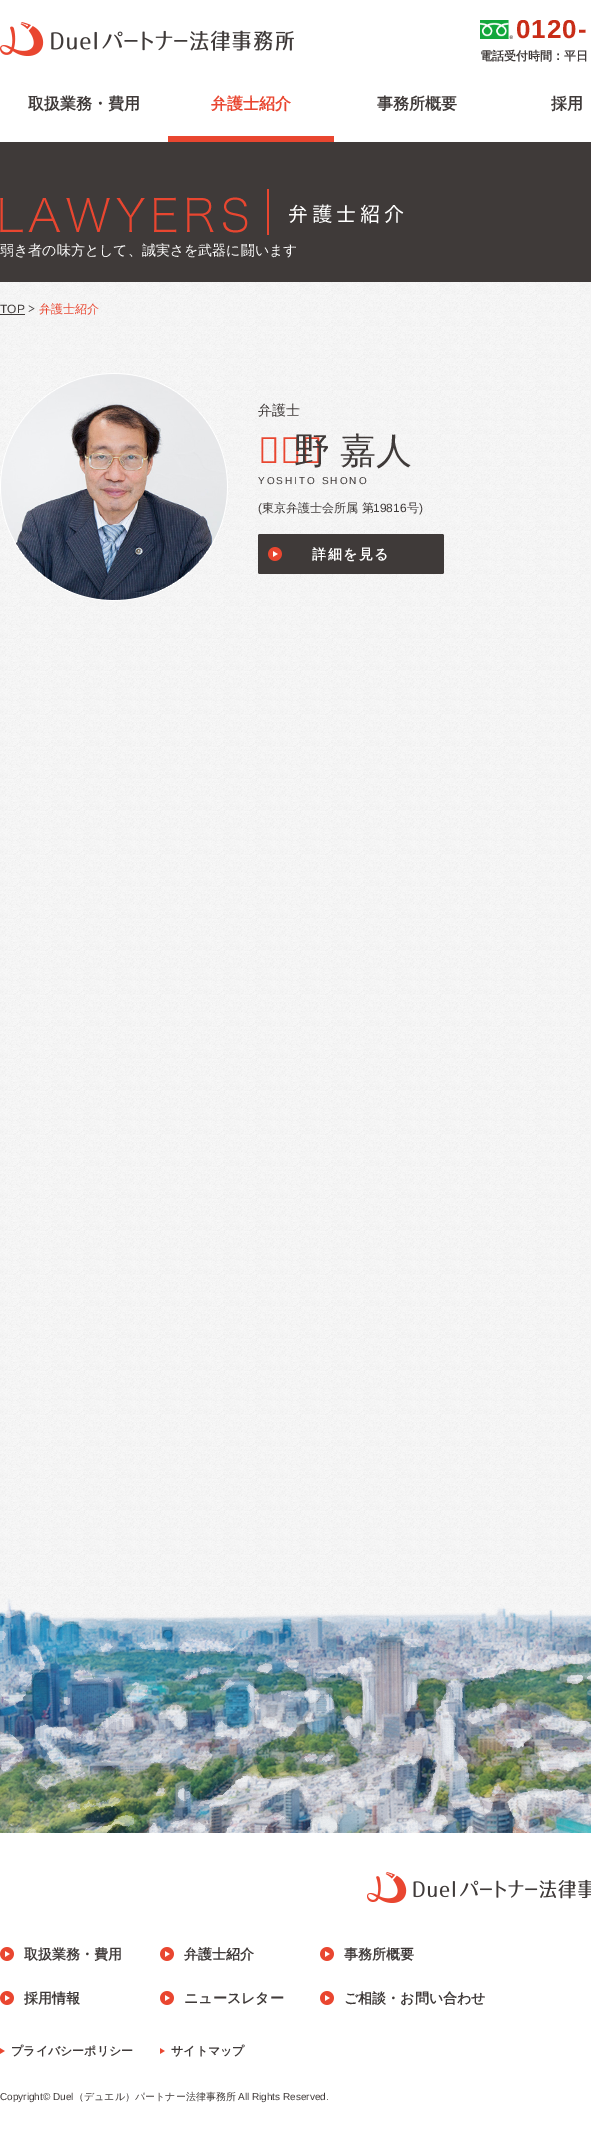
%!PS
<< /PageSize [591 2152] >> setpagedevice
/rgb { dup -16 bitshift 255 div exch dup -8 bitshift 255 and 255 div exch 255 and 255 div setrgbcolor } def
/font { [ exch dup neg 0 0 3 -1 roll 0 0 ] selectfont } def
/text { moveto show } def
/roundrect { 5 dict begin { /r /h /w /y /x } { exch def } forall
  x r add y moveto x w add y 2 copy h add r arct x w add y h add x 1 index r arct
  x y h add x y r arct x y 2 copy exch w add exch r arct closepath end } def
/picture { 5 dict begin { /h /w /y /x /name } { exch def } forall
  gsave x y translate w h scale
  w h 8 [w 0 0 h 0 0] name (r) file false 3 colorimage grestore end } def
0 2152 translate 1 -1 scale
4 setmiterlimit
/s1 { /WenQuanYiZenHei-Bold 12 font 16#3F3A39 rgb } def
/s2 { /WenQuanYiZenHei-Bold 16 font 16#3F3A39 rgb } def
/s3 { /WenQuanYiZenHei-Bold 16 font 16#E94630 rgb } def
/s4 { /WenQuanYiZenHei-Medium 14 font 16#FFFFFF rgb } def
/s5 { /WenQuanYiZenHei-Medium 14 font 16#3F3A39 rgb } def
/s6 { /NotoSans-Regular 36 font 16#E94630 rgb } def
/s7 { /LiberationSans-Regular 12 font 16#3F3A39 rgb } def
/s8 { /WenQuanYiZenHei-Medium 12 font 16#3F3A39 rgb } def
/s9 { /WenQuanYiZenHei-Medium 12 font 16#E94630 rgb } def
/s10 { /WenQuanYiZenHei-Bold 14 font 16#3F3A39 rgb } def
/s11 { /LiberationSans-Regular 10 font 16#3F3A39 rgb } def
/s12 { /WenQuanYiZenHei-Medium 10 font 16#3F3A39 rgb } def
16#F4F4F4 rgb
0 0 591 2152 rectfill
(pic1.raw) 0 282 590 1341 picture
16#FFFFFF rgb
0 0 591 142 rectfill
(pic2.raw) 0 22 294 34 picture
(pic3.raw) 480 20 33 19 picture
gsave
480 20 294 42 rectclip
/LiberationSans-Bold 26 font
16#C82D18 rgb
516 38 moveto 1 0 (0120-) ashow
grestore
s1
(電話受付時間：平日) 480 60 text
s2
(取扱業務・費用) 28 109 text
s3
(弁護士紹介) 211 109 text
168 136 166 6 rectfill
s2
(事務所概要) 377 109 text
(採用) 551 109 text
0 142 591 140 rectfill
(pic4.raw) 0 189 404 46 picture
s4
(弱き者の味方として、誠実さを武器に闘います) 0 255 text
(pic5.raw) 0 373 228 228 picture
s5
(弁護士) 258 415 text
s6
(正) 258 463 text
/WenQuanYiZenHei-Medium 36 font
16#3F3A39 rgb
294 463 moveto -1 0 32 (野 嘉人) widthshow
/LiberationSans-Regular 10 font
258 484 moveto 2 0 (YOSHITO SHONO) ashow
s7
(\() 258 512 text
s8
(東京弁護士会所属 第) 262 512 text
s7
(19816) 373 512 text
s8
(号) 407 512 text
s7
(\)) 419 512 text
258 534 186 40 2 roundrect fill
(pic6.raw) 268 547 14 14 picture
/WenQuanYiZenHei-Bold 14 font
16#FFFFFF rgb
312 559 moveto 1.5 0 (詳細を見る) ashow
s7
(TOP) 0 313 text
0 314 25 1 rectfill
(pic7.raw) 28 305 7 7 picture
s9
(弁護士紹介) 39 313 text
16#FFFFFF rgb
0 1833 591 319 rectfill
(pic8.raw) 0 1598 591 235 picture
(pic9.raw) 367 1872 224 31 picture
(pic10.raw) 0 1947 14 14 picture
s10
(取扱業務・費用) 24 1959 text
(pic10.raw) 160 1947 14 14 picture
(弁護士紹介) 184 1959 text
(pic10.raw) 320 1947 14 14 picture
(事務所概要) 344 1959 text
(pic10.raw) 0 1991 14 14 picture
(採用情報) 24 2003 text
(pic10.raw) 160 1991 14 14 picture
(ニュースレター) 184 2003 text
(pic10.raw) 320 1991 14 14 picture
(ご相談・お問い合わせ) 344 2003 text
(pic11.raw) 0 2048 5 6 picture
s1
(プライバシーポリシー) 11 2055 text
(pic11.raw) 160 2048 5 6 picture
(サイトマップ) 171 2055 text
s11
(Copyright© Duel) 0 2100 text
s12
(（デュエル）パートナー法律事務所) 74 2100 text
s11
(All Rights Reserved.) 238 2100 text
showpage
